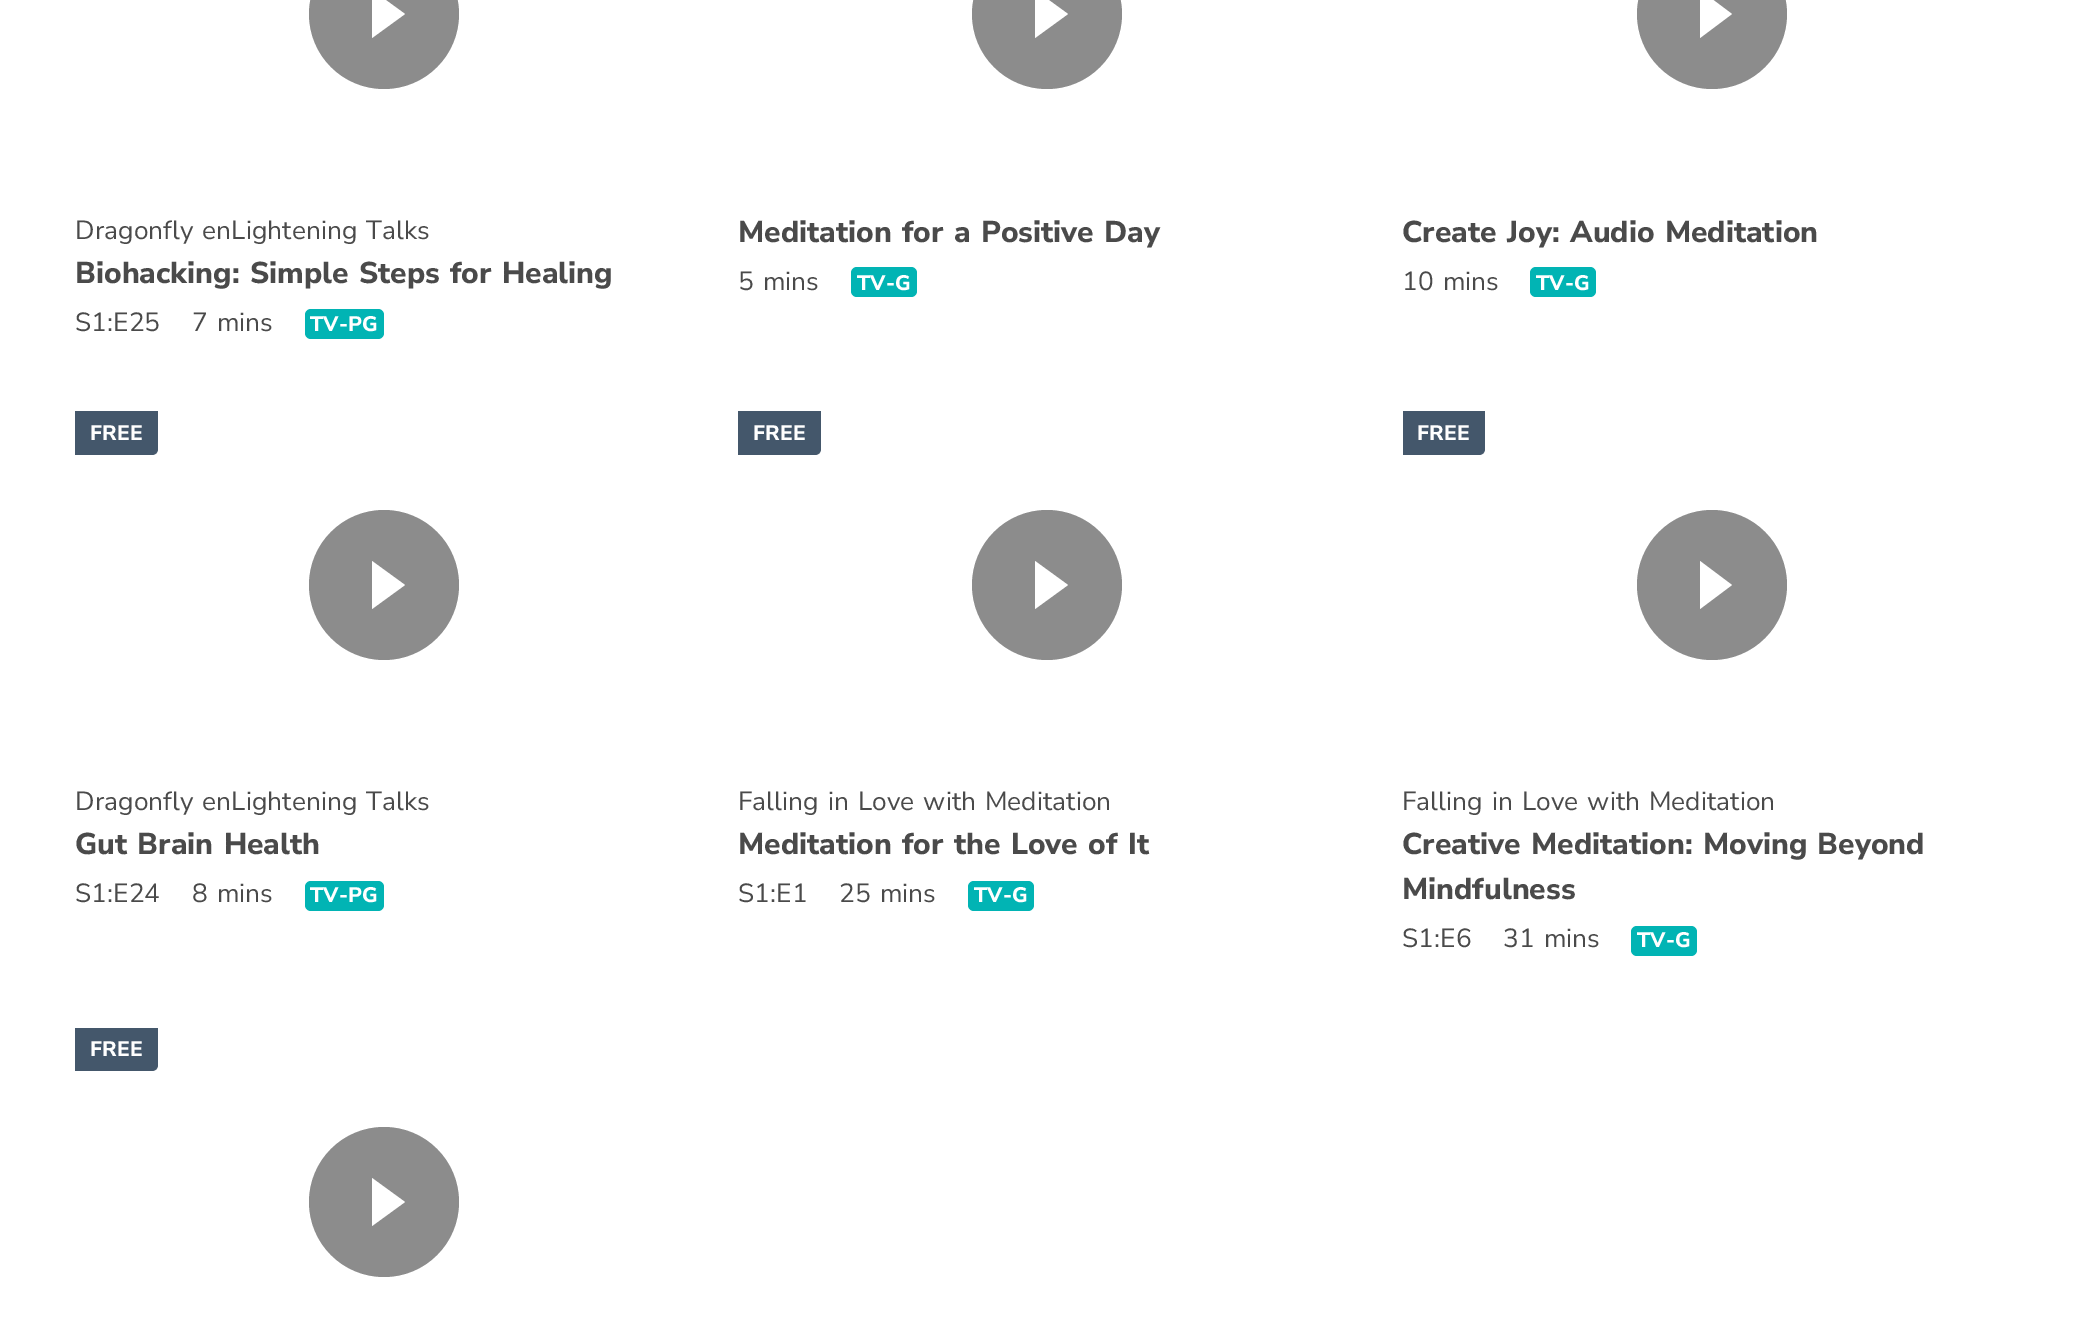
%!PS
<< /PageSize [2095 1328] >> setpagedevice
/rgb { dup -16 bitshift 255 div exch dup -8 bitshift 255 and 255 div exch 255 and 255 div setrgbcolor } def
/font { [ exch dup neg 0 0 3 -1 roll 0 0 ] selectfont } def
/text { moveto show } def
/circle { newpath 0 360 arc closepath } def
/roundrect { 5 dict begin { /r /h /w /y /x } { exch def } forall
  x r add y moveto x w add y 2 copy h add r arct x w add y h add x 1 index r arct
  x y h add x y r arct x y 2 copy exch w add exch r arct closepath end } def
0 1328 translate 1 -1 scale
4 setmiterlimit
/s1 { /NunitoSans-ExtraBold 30 font 16#4A4A4A rgb } def
16#FFFFFF rgb
0 0 2095 1328 rectfill
16#8C8C8C rgb
384 14 75 circle fill
16#FFFFFF rgb
372 38 moveto 372 -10 lineto 405 14 lineto closepath fill
/NunitoSans-Regular 26.25 font
16#4A4A4A rgb
75 239 moveto 2 0 32 0.1 0 (Dragonfly enLightening Talks) awidthshow
/NunitoSans-ExtraBold 30 font
75 283 moveto 2 0 32 (Biohacking: Simple Steps for Healing) widthshow
/NunitoSans-Regular 26.25 font
75 331 moveto 0.1 0 (S1:E25) ashow
192 331 moveto 2 0 32 0.1 0 (7 mins) awidthshow
16#01B4B4 rgb
305 309 79 30 6 roundrect fill
/NunitoSans-ExtraBold 21 font
16#FFFFFF rgb
310 331 moveto 0.1 0 (TV-PG) ashow
16#8C8C8C rgb
1047 14 75 circle fill
16#FFFFFF rgb
1035 38 moveto 1035 -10 lineto 1068 14 lineto closepath fill
/NunitoSans-ExtraBold 30 font
16#4A4A4A rgb
738 242 moveto 2 0 32 (Meditation for a Positive Day) widthshow
/NunitoSans-Regular 26.25 font
738 290 moveto 2 0 32 0.1 0 (5 mins) awidthshow
16#01B4B4 rgb
851 267 66 30 6 roundrect fill
/NunitoSans-ExtraBold 21 font
16#FFFFFF rgb
857 290 moveto 0.1 0 (TV-G) ashow
16#8C8C8C rgb
1712 14 75 circle fill
16#FFFFFF rgb
1700 38 moveto 1700 -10 lineto 1732 14 lineto closepath fill
/NunitoSans-ExtraBold 30 font
16#4A4A4A rgb
1402 242 moveto 2 0 32 (Create Joy: Audio Meditation) widthshow
/NunitoSans-Regular 26.25 font
1402 290 moveto 2 0 32 0.1 0 (10 mins) awidthshow
16#01B4B4 rgb
1530 267 66 30 6 roundrect fill
/NunitoSans-ExtraBold 21 font
16#FFFFFF rgb
1536 290 moveto 0.1 0 (TV-G) ashow
16#44576B rgb
75 411 moveto 158 411 lineto 158 449 lineto 158 452.5 155.5 455 152 455 curveto 75 455 lineto closepath fill
16#FFFFFF rgb
90 440 moveto 0.1 0 (FREE) ashow
16#8C8C8C rgb
384 585 75 circle fill
16#FFFFFF rgb
372 609 moveto 372 561 lineto 405 585 lineto closepath fill
/NunitoSans-Regular 26.25 font
16#4A4A4A rgb
75 810 moveto 2 0 32 0.1 0 (Dragonfly enLightening Talks) awidthshow
/NunitoSans-ExtraBold 30 font
75 854 moveto 2 0 32 (Gut Brain Health) widthshow
/NunitoSans-Regular 26.25 font
75 902 moveto 0.1 0 (S1:E24) ashow
192 902 moveto 2 0 32 0.1 0 (8 mins) awidthshow
16#01B4B4 rgb
305 881 79 30 6 roundrect fill
/NunitoSans-ExtraBold 21 font
16#FFFFFF rgb
310 902 moveto 0.1 0 (TV-PG) ashow
16#44576B rgb
738 411 moveto 821 411 lineto 821 449 lineto 821 452.5 818.5 455 815 455 curveto 738 455 lineto closepath fill
16#FFFFFF rgb
753 440 moveto 0.1 0 (FREE) ashow
16#8C8C8C rgb
1047 585 75 circle fill
16#FFFFFF rgb
1035 609 moveto 1035 561 lineto 1068 585 lineto closepath fill
/NunitoSans-Regular 26.25 font
16#4A4A4A rgb
738 810 moveto 2 0 32 0.1 0 (Falling in Love with Meditation) awidthshow
/NunitoSans-ExtraBold 30 font
738 854 moveto 2 0 32 (Meditation for the Love of It) widthshow
/NunitoSans-Regular 26.25 font
738 902 moveto 0.1 0 (S1:E1) ashow
839 902 moveto 2 0 32 0.1 0 (25 mins) awidthshow
16#01B4B4 rgb
968 881 66 30 6 roundrect fill
/NunitoSans-ExtraBold 21 font
16#FFFFFF rgb
974 902 moveto 0.1 0 (TV-G) ashow
16#44576B rgb
1403 411 moveto 1485 411 lineto 1485 449 lineto 1485 452.5 1482.5 455 1479 455 curveto 1403 455 lineto closepath fill
16#FFFFFF rgb
1417 440 moveto 0.1 0 (FREE) ashow
16#8C8C8C rgb
1712 585 75 circle fill
16#FFFFFF rgb
1700 609 moveto 1700 561 lineto 1732 585 lineto closepath fill
/NunitoSans-Regular 26.25 font
16#4A4A4A rgb
1402 810 moveto 2 0 32 0.1 0 (Falling in Love with Meditation) awidthshow
/NunitoSans-ExtraBold 30 font
1402 854 moveto 2 0 32 (Creative Meditation: Moving Beyond) widthshow
(Mindfulness) 1402 899 text
/NunitoSans-Regular 26.25 font
1402 947 moveto 0.1 0 (S1:E6) ashow
1503 947 moveto 2 0 32 0.1 0 (31 mins) awidthshow
16#01B4B4 rgb
1631 926 66 30 6 roundrect fill
/NunitoSans-ExtraBold 21 font
16#FFFFFF rgb
1637 947 moveto 0.1 0 (TV-G) ashow
16#44576B rgb
75 1028 moveto 158 1028 lineto 158 1065 lineto 158 1068.5 155.5 1071 152 1071 curveto 75 1071 lineto closepath fill
16#FFFFFF rgb
90 1056 moveto 0.1 0 (FREE) ashow
16#8C8C8C rgb
384 1202 75 circle fill
16#FFFFFF rgb
372 1226 moveto 372 1178 lineto 405 1202 lineto closepath fill
showpage
